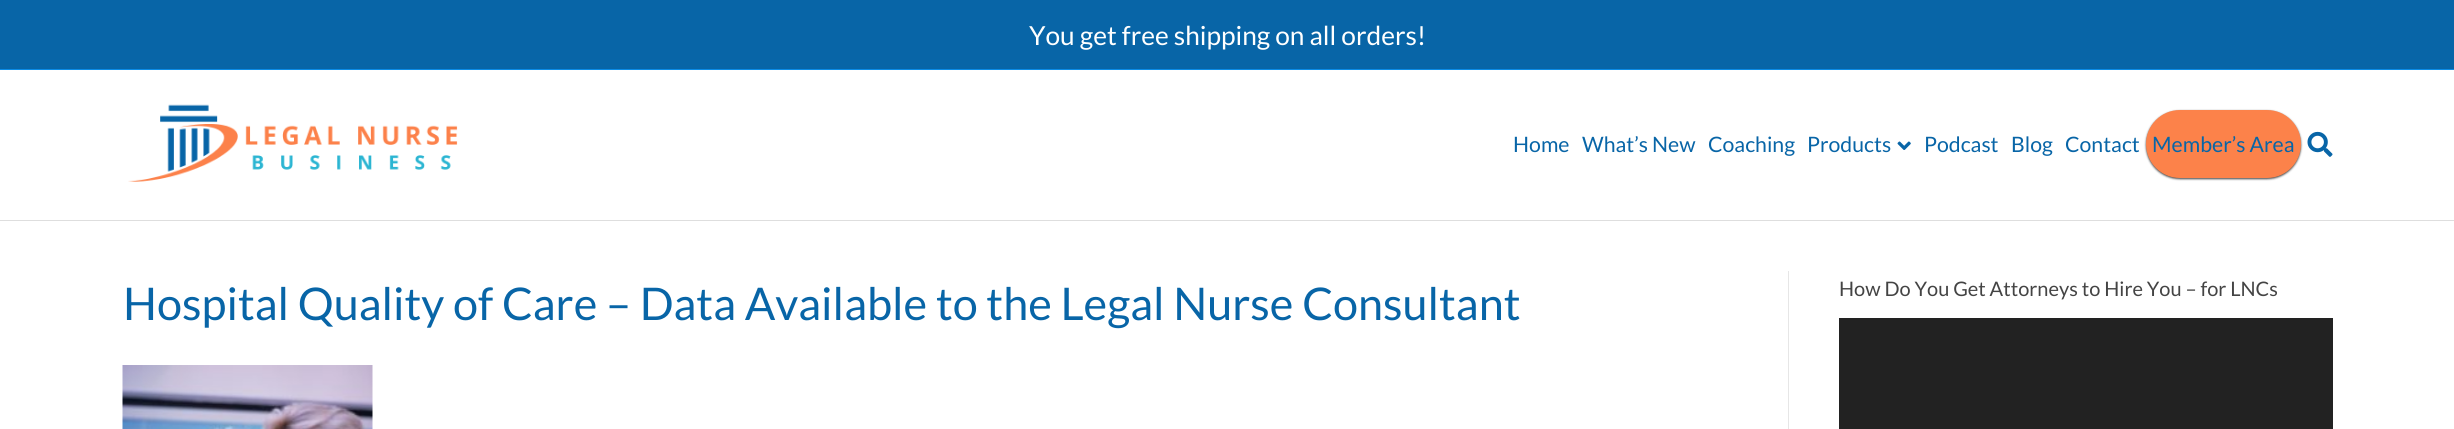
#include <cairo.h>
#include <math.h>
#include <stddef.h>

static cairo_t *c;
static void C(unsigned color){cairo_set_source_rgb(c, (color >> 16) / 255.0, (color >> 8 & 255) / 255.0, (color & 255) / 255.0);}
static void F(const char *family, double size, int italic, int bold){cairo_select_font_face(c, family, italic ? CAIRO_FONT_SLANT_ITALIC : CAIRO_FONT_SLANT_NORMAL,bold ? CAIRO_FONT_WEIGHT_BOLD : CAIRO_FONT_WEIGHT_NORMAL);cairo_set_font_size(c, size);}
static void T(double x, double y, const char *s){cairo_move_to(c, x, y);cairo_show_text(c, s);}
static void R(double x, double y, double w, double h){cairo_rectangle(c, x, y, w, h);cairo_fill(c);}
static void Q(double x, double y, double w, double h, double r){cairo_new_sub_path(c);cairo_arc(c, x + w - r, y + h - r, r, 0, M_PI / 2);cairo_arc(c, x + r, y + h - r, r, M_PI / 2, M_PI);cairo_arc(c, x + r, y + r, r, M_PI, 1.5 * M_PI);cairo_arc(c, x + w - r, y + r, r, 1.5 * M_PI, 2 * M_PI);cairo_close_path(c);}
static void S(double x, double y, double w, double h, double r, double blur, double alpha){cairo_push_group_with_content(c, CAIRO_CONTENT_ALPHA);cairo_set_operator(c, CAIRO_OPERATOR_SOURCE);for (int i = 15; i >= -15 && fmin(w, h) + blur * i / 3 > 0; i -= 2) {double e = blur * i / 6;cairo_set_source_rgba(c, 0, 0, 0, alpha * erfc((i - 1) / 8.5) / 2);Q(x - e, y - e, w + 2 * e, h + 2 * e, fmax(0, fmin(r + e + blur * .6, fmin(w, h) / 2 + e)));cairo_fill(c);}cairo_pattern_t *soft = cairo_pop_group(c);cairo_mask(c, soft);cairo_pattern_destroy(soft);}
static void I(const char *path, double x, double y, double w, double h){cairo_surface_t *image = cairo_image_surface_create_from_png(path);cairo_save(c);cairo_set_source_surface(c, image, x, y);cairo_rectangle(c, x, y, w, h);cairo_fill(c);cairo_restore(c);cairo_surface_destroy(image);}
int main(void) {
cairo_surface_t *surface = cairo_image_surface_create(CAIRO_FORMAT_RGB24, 2454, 429);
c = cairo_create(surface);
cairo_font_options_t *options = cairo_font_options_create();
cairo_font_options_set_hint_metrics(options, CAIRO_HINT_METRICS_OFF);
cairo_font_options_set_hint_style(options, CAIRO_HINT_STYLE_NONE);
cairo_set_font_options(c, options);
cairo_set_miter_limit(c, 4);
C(0xffffff);
cairo_paint(c);
C(0x0865a7);
R(0,0,2454,69);
C(0x0b8be6);
R(0,69,2454,1);
F("Lato",26.25,0,0);
C(0xffffff);
T(1029,45,"You get free shipping on all orders!");
C(0xdedede);
R(0,220,2454,1);
I("1.png",128,104,330,78);
F("Lato",21.25,0,0);
C(0x0865a7);
T(1513,152,"Home");
T(1582,152,"What’s New");
T(1708,152,"Coaching");
T(1807,152,"Products");
I("2.png",1897,141,14,9);
T(1924,152,"Podcast");
T(2011,152,"Blog");
T(2065,152,"Contact");
C(0x444444);
S(2146,111,155,68,34,1,1);
C(0xfc824a);
Q(2146,110,155,68,34);
cairo_fill(c);
C(0x0865a7);
T(2152,152,"Member’s Area");
I("3.png",2307,131,26,26);
C(0xe6e6e6);
R(1788,271,1,158);
F("Lato",45,0,0);
C(0x0865a7);
T(123,320,"Hospital Quality of Care – Data Available to the Legal Nurse Consultant");
I("4.png",122,365,251,64);
F("Lato",20,0,0);
C(0x444444);
T(1839,296,"How Do You Get Attorneys to Hire You – for LNCs");
C(0x222222);
R(1839,318,494,111);
cairo_surface_write_to_png(surface, "o.png");
cairo_font_options_destroy(options);
cairo_destroy(c);
cairo_surface_destroy(surface);
return 0;
}
